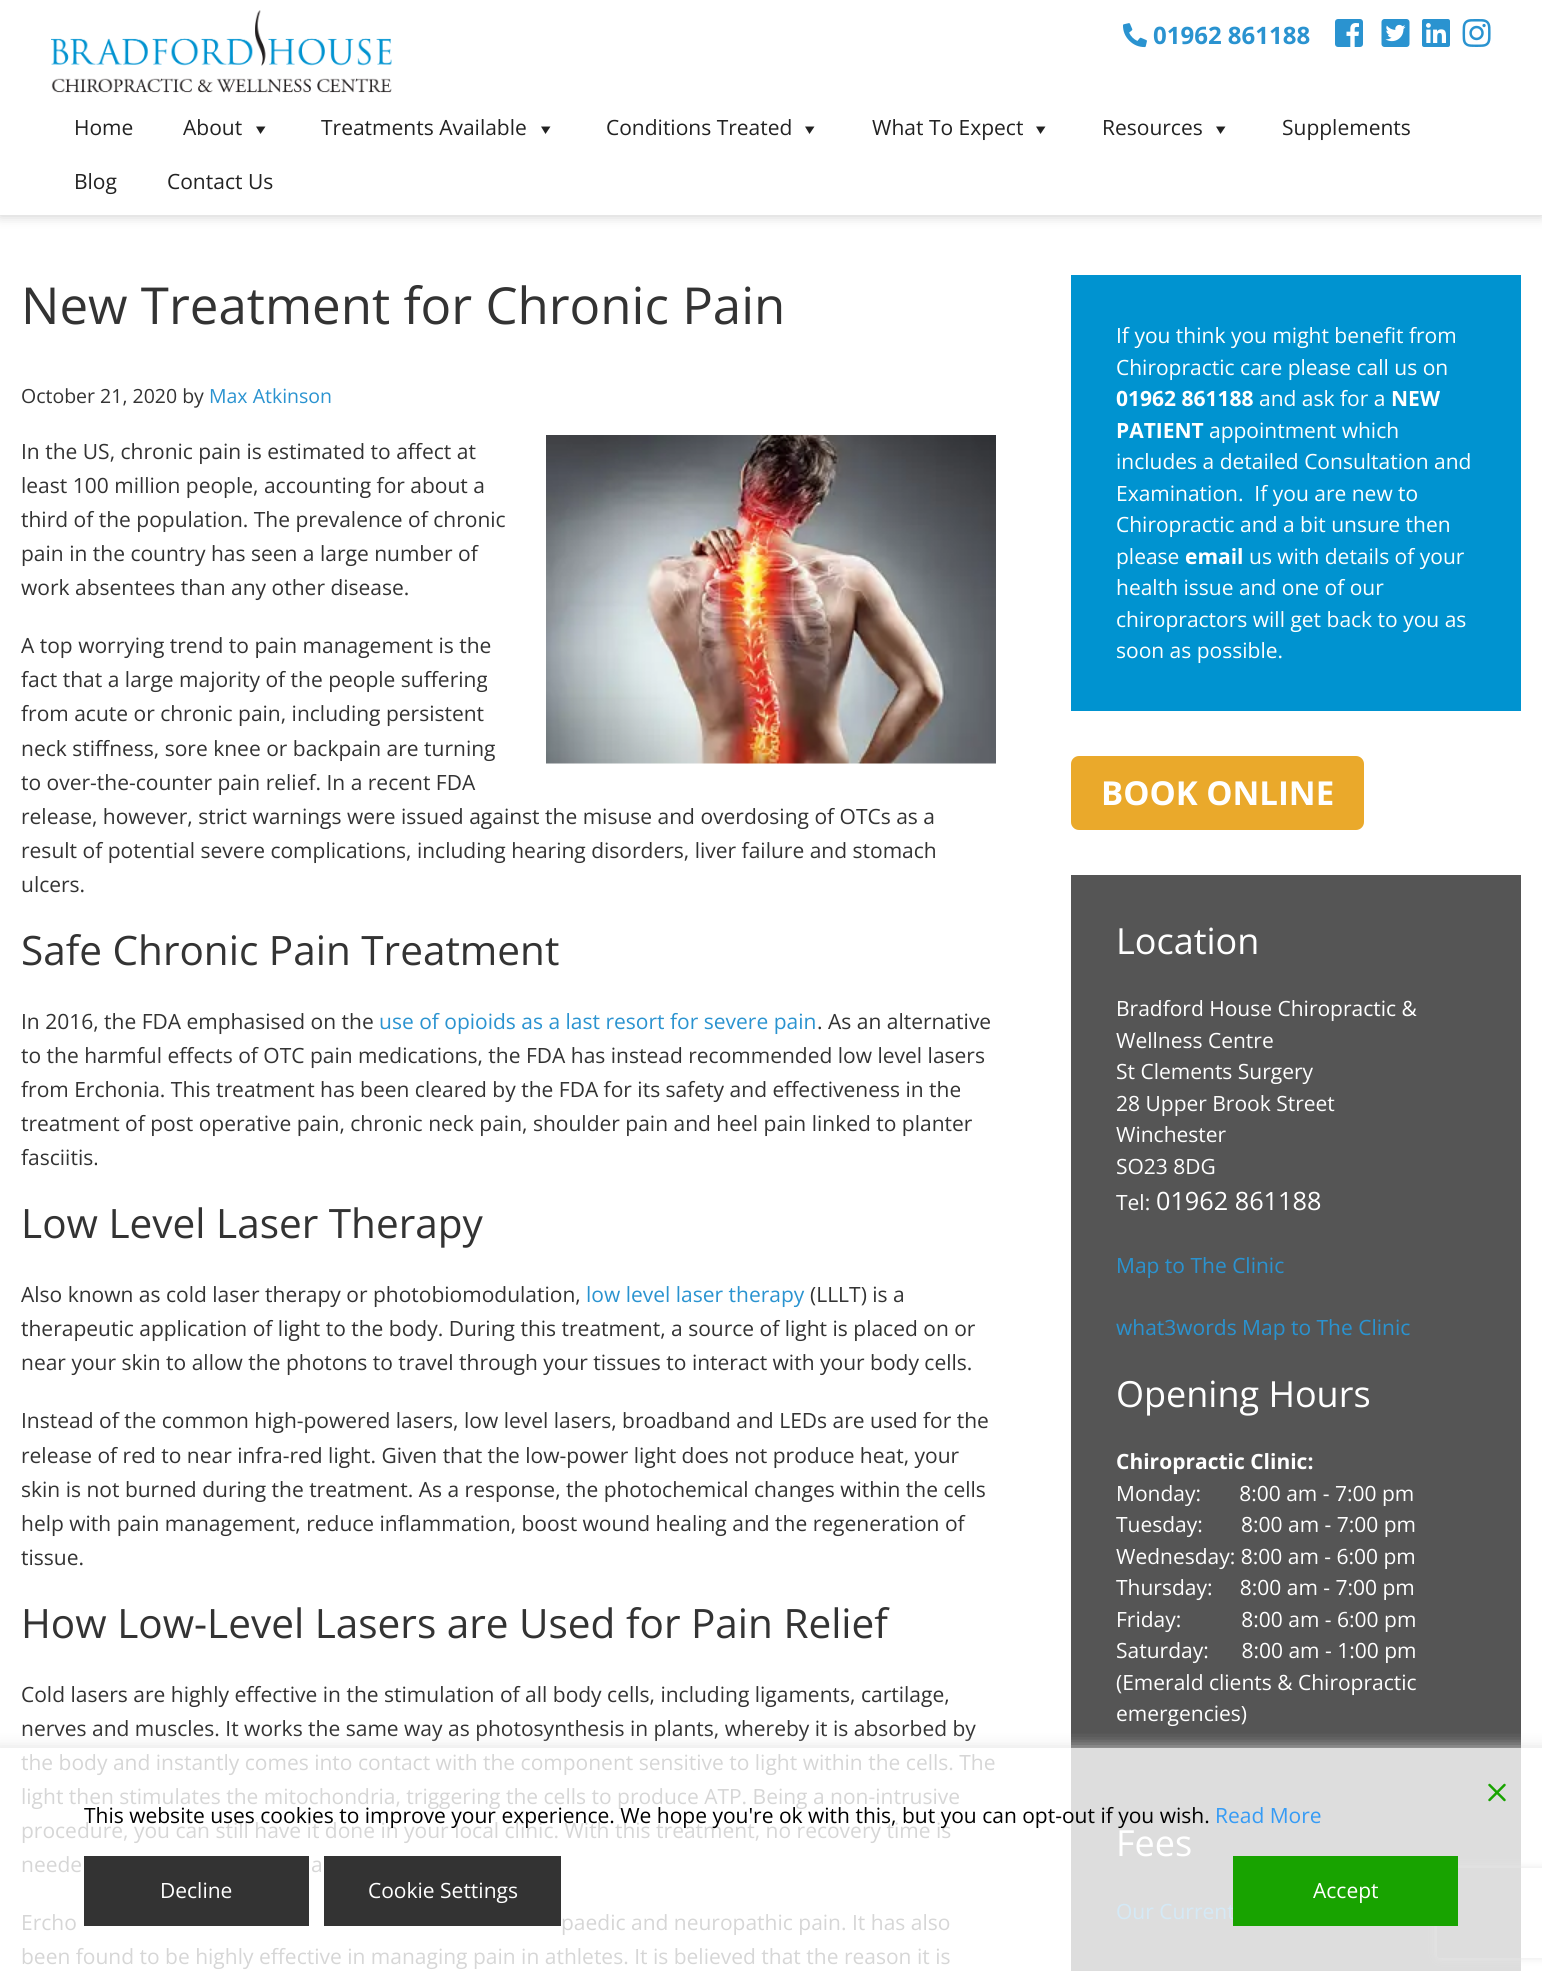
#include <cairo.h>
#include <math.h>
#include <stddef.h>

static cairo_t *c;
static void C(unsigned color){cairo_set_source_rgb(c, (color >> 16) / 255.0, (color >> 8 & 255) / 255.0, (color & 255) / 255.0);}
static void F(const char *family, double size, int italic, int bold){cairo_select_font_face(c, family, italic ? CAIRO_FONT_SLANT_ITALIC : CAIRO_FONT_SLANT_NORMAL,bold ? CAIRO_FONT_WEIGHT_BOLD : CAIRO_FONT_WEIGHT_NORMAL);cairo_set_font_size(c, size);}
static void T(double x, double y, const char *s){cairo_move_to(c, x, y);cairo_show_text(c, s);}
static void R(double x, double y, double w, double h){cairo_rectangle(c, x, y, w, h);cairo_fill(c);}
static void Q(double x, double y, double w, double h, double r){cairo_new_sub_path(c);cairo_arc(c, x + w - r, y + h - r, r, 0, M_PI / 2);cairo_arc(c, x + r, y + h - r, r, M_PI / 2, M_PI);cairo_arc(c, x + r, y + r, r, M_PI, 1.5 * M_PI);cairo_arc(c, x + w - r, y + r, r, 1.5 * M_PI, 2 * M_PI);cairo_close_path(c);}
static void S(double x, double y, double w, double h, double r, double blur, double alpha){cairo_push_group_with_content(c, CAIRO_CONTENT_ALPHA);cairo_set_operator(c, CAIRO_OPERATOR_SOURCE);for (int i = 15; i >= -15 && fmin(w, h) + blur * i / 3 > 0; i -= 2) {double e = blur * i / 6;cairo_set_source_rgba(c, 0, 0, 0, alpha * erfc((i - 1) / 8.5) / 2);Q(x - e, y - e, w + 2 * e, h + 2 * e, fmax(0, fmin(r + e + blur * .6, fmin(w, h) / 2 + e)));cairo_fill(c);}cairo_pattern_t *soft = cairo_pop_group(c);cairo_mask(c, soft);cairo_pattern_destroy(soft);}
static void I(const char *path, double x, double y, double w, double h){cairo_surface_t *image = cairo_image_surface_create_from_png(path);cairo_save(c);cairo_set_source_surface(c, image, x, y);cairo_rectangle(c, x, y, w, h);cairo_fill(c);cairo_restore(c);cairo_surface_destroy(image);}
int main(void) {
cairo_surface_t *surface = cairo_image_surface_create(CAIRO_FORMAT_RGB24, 1542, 1978);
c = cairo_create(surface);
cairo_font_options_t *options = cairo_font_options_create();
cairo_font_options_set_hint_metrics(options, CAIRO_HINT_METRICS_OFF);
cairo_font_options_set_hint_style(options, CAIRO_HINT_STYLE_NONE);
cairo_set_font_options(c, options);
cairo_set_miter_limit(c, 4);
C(0xffffff);
cairo_paint(c);
C(0x000000);
S(0,2,1542,214,0,6,.2);
C(0xffffff);
R(0,0,1542,215);
I("1.png",51,10,341,83);
I("2.png",1123,23,24,25);
F("Open Sans",24,0,1);
C(0x2a93d0);
T(1153,44,"01962 861188");
I("3.png",1335,19,28,28);
I("4.png",1381,19,29,28);
I("5.png",1422,19,28,28);
I("6.png",1462,19,29,28);
F("Open Sans",21,0,0);
C(0x222222);
T(74,135,"Home");
T(183,135,"About");
cairo_new_path(c);
cairo_move_to(c,265.5,126.5);
cairo_line_to(c,260.5,134);
cairo_line_to(c,256,126.5);
cairo_close_path(c);
cairo_fill(c);
T(321,135,"Treatments Available");
cairo_new_path(c);
cairo_move_to(c,550.5,126.5);
cairo_line_to(c,545.5,134);
cairo_line_to(c,541,126.5);
cairo_close_path(c);
cairo_fill(c);
T(606,135,"Conditions Treated");
cairo_new_path(c);
cairo_move_to(c,814.5,126.5);
cairo_line_to(c,809.5,134);
cairo_line_to(c,805,126.5);
cairo_close_path(c);
cairo_fill(c);
T(872,135,"What To Expect");
cairo_new_path(c);
cairo_move_to(c,1045.5,126.5);
cairo_line_to(c,1040.5,134);
cairo_line_to(c,1036,126.5);
cairo_close_path(c);
cairo_fill(c);
T(1102,135,"Resources");
cairo_new_path(c);
cairo_move_to(c,1225.5,126.5);
cairo_line_to(c,1220.5,134);
cairo_line_to(c,1216,126.5);
cairo_close_path(c);
cairo_fill(c);
T(1282,135,"Supplements");
T(74,189,"Blog");
T(167,189,"Contact Us");
F("Open Sans",51,0,0);
C(0x333333);
T(21,324,"New Treatment for Chronic Pain");
F("Open Sans",19.5,0,0);
T(21,403,"October 21, 2020 by");
C(0x2a93d0);
T(209,403,"Max Atkinson");
F("Open Sans",21,0,0);
C(0x333333);
T(21,459,"In the US, chronic pain is estimated to affect at");
I("7.png",546,435,450,329);
T(21,493,"least 100 million people, accounting for about a");
T(21,527,"third of the population. The prevalence of chronic");
T(21,561,"pain in the country has seen a large number of");
T(21,595,"work absentees than any other disease.");
T(21,653,"A top worrying trend to pain management is the");
T(21,687,"fact that a large majority of the people suffering");
T(21,721,"from acute or chronic pain, including persistent");
T(21,756,"neck stiffness, sore knee or backpain are turning");
T(21,790,"to over-the-counter pain relief. In a recent FDA");
T(21,824,"release, however, strict warnings were issued against the misuse and overdosing of OTCs as a");
T(21,858,"result of potential severe complications, including hearing disorders, liver failure and stomach");
T(21,892,"ulcers.");
F("Open Sans",40.5,0,0);
T(21,965,"Safe Chronic Pain Treatment");
F("Open Sans",21,0,0);
T(21,1029,"In 2016, the FDA emphasised on the");
C(0x2a93d0);
T(379,1029,"use of opioids as a last resort for severe pain");
C(0x333333);
T(817,1029,". As an alternative");
T(21,1063,"to the harmful effects of OTC pain medications, the FDA has instead recommended low level lasers");
T(21,1097,"from Erchonia. This treatment has been cleared by the FDA for its safety and effectiveness in the");
T(21,1131,"treatment of post operative pain, chronic neck pain, shoulder pain and heel pain linked to planter");
T(21,1165,"fasciitis.");
F("Open Sans",40.5,0,0);
T(21,1238,"Low Level Laser Therapy");
F("Open Sans",21,0,0);
T(21,1302,"Also known as cold laser therapy or photobiomodulation,");
C(0x2a93d0);
T(586,1302,"low level laser therapy");
C(0x333333);
T(810,1302,"(LLLT) is a");
T(21,1336,"therapeutic application of light to the body. During this treatment, a source of light is placed on or");
T(21,1370,"near your skin to allow the photons to travel through your tissues to interact with your body cells.");
T(21,1428,"Instead of the common high-powered lasers, low level lasers, broadband and LEDs are used for the");
T(21,1463,"release of red to near infra-red light. Given that the low-power light does not produce heat, your");
T(21,1497,"skin is not burned during the treatment. As a response, the photochemical changes within the cells");
T(21,1531,"help with pain management, reduce inflammation, boost wound healing and the regeneration of");
T(21,1565,"tissue.");
F("Open Sans",40.5,0,0);
T(21,1638,"How Low-Level Lasers are Used for Pain Relief");
F("Open Sans",21,0,0);
T(21,1702,"Cold lasers are highly effective in the stimulation of all body cells, including ligaments, cartilage,");
T(21,1736,"nerves and muscles. It works the same way as photosynthesis in plants, whereby it is absorbed by");
C(0xd6d6d6);
T(21,1770,"the body and instantly comes into contact with the component sensitive to light within the cells. The");
T(21,1804,"light then stimulates the mitochondria, triggering the cells to produce ATP. Being a non-intrusive");
T(21,1838,"procedure, you can still have it done in your local clinic. With this treatment, no recovery time is");
T(21,1872,"neede");
T(311,1872,"a");
T(21,1930,"Ercho");
T(561,1930,"paedic and neuropathic pain. It has also");
T(21,1964,"been found to be highly effective in managing pain in athletes. It is believed that the reason it is");
C(0x0093d0);
R(1071,275,450,436);
C(0xffffff);
T(1116,343,"If you think you might benefit from");
T(1116,375,"Chiropractic care please call us on");
F("Open Sans",21,0,1);
T(1116,406,"01962 861188");
F("Open Sans",21,0,0);
T(1259,406,"and ask for a");
F("Open Sans",21,0,1);
T(1391,406,"NEW");
T(1116,438,"PATIENT");
F("Open Sans",21,0,0);
T(1209,438,"appointment which");
T(1116,469,"includes a detailed Consultation and");
T(1116,501,"Examination.  If you are new to");
T(1116,532,"Chiropractic and a bit unsure then");
T(1116,564,"please");
F("Open Sans",21,0,1);
T(1185,564,"email");
F("Open Sans",21,0,0);
T(1249,564,"us with details of your");
T(1116,595,"health issue and one of our");
T(1116,627,"chiropractors will get back to you as");
T(1116,658,"soon as possible.");
C(0xeaa92b);
Q(1071,756,293,74,8);
cairo_fill(c);
F("Open Sans",33,0,1);
C(0xffffff);
T(1101,805,"BOOK ONLINE");
C(0x555555);
R(1071,875,450,873);
C(0xdddddd);
R(1071,1748,450,223);
F("Open Sans",36,0,0);
C(0xffffff);
T(1116,954,"Location");
F("Open Sans",21,0,0);
T(1116,1016,"Bradford House Chiropractic &");
T(1116,1048,"Wellness Centre");
T(1116,1079,"St Clements Surgery");
T(1116,1111,"28 Upper Brook Street");
T(1116,1142,"Winchester");
T(1116,1174,"SO23 8DG");
T(1116,1210,"Tel:");
F("Open Sans",25.25,0,0);
T(1156,1210,"01962 861188");
F("Open Sans",21,0,0);
C(0x2a93d0);
T(1116,1273,"Map to The Clinic");
T(1116,1335,"what3words Map to The Clinic");
F("Open Sans",36,0,0);
C(0xffffff);
T(1116,1407,"Opening Hours");
F("Open Sans",21,0,1);
T(1116,1469,"Chiropractic Clinic:");
F("Open Sans",21,0,0);
T(1116,1501,"Monday:       8:00 am - 7:00 pm");
T(1116,1532,"Tuesday:       8:00 am - 7:00 pm");
T(1116,1564,"Wednesday: 8:00 am - 6:00 pm");
T(1116,1595,"Thursday:     8:00 am - 7:00 pm");
T(1116,1627,"Friday:           8:00 am - 6:00 pm");
T(1116,1658,"Saturday:      8:00 am - 1:00 pm");
T(1116,1690,"(Emerald clients & Chiropractic");
T(1116,1721,"emergencies)");
F("Open Sans",36,0,0);
T(1116,1856,"Fees");
F("Open Sans",21,0,0);
C(0xd4e9f6);
T(1116,1919,"Our Current");
cairo_save(c);
cairo_rectangle(c,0,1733,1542,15);
cairo_clip(c);
C(0xdddddd);
S(-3,1749,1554,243,0,8,1);
cairo_restore(c);
I("8.png",1488,1783,18,19);
C(0x000000);
T(84,1823,"This website uses cookies to improve your experience. We hope you're ok with this, but you can opt-out if you wish.");
C(0x359bf5);
T(1215,1823,"Read More");
C(0x333333);
R(84,1856,225,70);
C(0xffffff);
T(160,1898,"Decline");
C(0x333333);
R(324,1856,237,70);
C(0xffffff);
T(368,1898,"Cookie Settings");
cairo_save(c);
cairo_set_fill_rule(c,CAIRO_FILL_RULE_EVEN_ODD);
cairo_new_path(c);
cairo_move_to(c,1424,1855);
cairo_line_to(c,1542,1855);
cairo_line_to(c,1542,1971);
cairo_line_to(c,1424,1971);
cairo_close_path(c);
cairo_move_to(c,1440,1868);
cairo_line_to(c,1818,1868);
cairo_curve_to(c,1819.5,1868,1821,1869.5,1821,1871);
cairo_line_to(c,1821,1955);
cairo_curve_to(c,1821,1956.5,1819.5,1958,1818,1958);
cairo_line_to(c,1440,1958);
cairo_curve_to(c,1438.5,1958,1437,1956.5,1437,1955);
cairo_line_to(c,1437,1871);
cairo_curve_to(c,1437,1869.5,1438.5,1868,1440,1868);
cairo_close_path(c);
cairo_clip(c);
C(0xe6e6e6);
S(1437,1868,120,90,3,4,1);
cairo_restore(c);
C(0x18a300);
R(1233,1856,225,70);
C(0xffffff);
T(1313,1898,"Accept");
cairo_surface_write_to_png(surface, "o.png");
cairo_font_options_destroy(options);
cairo_destroy(c);
cairo_surface_destroy(surface);
return 0;
}
